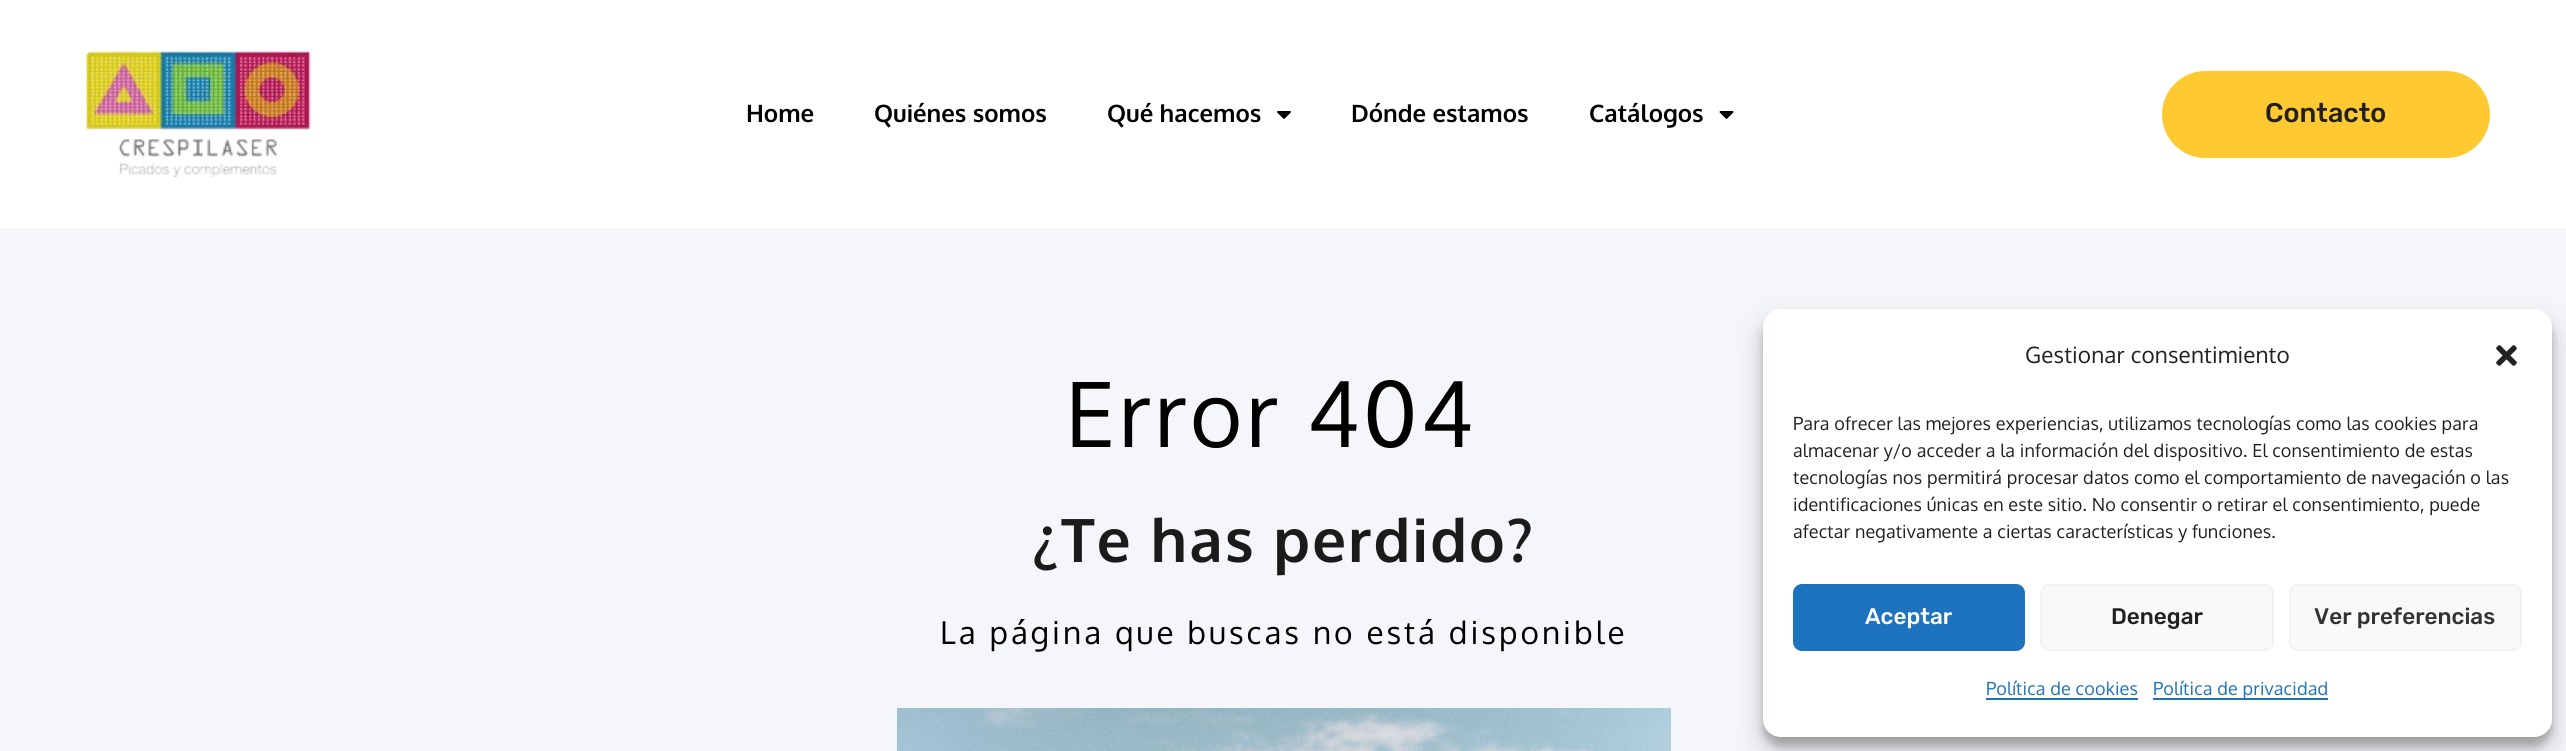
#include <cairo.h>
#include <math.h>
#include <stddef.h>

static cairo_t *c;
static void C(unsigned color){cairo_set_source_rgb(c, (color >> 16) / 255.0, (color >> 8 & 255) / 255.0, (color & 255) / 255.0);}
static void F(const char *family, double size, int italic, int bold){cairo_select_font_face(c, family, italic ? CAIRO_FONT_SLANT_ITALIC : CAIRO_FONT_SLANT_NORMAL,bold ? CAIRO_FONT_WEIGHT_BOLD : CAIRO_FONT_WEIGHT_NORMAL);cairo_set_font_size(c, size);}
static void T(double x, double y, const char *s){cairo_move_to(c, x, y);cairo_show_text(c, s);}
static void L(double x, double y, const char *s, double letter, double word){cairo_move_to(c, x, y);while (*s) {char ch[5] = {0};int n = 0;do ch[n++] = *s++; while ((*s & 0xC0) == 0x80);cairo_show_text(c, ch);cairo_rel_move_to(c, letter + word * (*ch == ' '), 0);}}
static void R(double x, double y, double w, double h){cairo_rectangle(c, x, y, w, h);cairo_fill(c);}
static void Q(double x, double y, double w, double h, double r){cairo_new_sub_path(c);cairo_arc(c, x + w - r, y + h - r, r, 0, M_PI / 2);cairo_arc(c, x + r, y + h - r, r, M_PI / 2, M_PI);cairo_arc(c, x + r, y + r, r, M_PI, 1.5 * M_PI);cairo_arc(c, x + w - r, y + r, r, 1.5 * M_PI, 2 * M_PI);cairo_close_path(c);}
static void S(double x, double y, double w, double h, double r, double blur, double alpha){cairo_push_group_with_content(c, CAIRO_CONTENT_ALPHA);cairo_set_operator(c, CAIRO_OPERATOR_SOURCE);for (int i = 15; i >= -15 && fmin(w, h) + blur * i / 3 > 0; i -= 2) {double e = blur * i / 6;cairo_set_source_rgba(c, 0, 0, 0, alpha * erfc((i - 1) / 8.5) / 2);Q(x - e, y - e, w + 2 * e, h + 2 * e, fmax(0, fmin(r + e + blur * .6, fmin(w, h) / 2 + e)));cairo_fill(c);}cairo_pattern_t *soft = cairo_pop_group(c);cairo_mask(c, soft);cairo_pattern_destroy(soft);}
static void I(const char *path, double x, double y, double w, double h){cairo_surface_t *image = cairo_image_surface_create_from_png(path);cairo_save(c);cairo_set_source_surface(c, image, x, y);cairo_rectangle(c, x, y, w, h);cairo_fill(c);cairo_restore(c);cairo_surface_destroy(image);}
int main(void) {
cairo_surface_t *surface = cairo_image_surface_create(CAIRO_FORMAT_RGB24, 2566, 751);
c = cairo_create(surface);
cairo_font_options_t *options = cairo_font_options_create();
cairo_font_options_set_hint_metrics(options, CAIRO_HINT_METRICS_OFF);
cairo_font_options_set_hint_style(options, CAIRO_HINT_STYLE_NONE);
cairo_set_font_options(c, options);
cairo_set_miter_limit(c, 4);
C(0xffffff);
cairo_paint(c);
I("1.png",85,51,226,126);
F("Oxygen",24,0,1);
C(0x000000);
T(746,122,"Home");
T(874,122,"Quiénes somos");
T(1107,122,"Qué hacemos");
I("2.png",1277,111,14,8);
T(1351,122,"Dónde estamos");
T(1589,122,"Catálogos");
I("3.png",1719,111,15,8);
C(0xfec931);
Q(2162,71,328,87,43.5);
cairo_fill(c);
F("Rubik Medium",27,0,0);
C(0x212121);
T(2265,122,"Contacto");
C(0xf5f6fa);
R(0,228,2566,523);
F("Oxygen",90,0,0);
C(0x000000);
L(1065,447,"Error 404",3,0);
F("Oxygen",60,0,1);
C(0x1b1b1b);
L(1033,562,"¿Te has perdido?",2,0);
F("Oxygen",31.5,0,0);
C(0x000000);
L(940,644,"La página que buscas no está disponible",3,0);
I("4.png",897,708,774,43);
C(0x000000);
S(1763,318,789,428,18,4.5,.23);
S(1763,324,789,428,18,15,.19);
C(0xffffff);
Q(1763,309,789,428,18);
cairo_fill(c);
F("Oxygen",22.5,0,0);
C(0x212121);
L(2025,363,"Gestionar consentimiento",.15,0);
I("5.png",2496,345,21,21);
F("Oxygen",18,0,0);
L(1793,430,"Para ofrecer las mejores experiencias, utilizamos tecnologías como las cookies para",.15,0);
L(1793,457,"almacenar y/o acceder a la información del dispositivo. El consentimiento de estas",.15,0);
L(1793,484,"tecnologías nos permitirá procesar datos como el comportamiento de navegación o las",.15,0);
L(1793,511,"identificaciones únicas en este sitio. No consentir o retirar el consentimiento, puede",.15,0);
L(1793,538,"afectar negativamente a ciertas características y funciones.",.15,0);
C(0x1e73be);
Q(1794,585,230,65,8);
cairo_fill_preserve(c);
cairo_stroke(c);
F("Rubik Medium",22.5,0,0);
C(0xffffff);
T(1865,624,"Aceptar");
C(0xf9f9f9);
Q(2041,585,232,65,8);
cairo_fill_preserve(c);
C(0xf2f2f2);
cairo_stroke(c);
C(0x212121);
T(2111,624,"Denegar");
C(0xf9f9f9);
Q(2290,585,231,65,8);
cairo_fill_preserve(c);
C(0xf2f2f2);
cairo_stroke(c);
C(0x333333);
T(2314,624,"Ver preferencias");
F("Oxygen",18,0,0);
C(0x1e73be);
L(1986,695,"Política de cookies",.15,0);
R(1986,698,152,2);
R(2153,698,175,2);
L(2153,695,"Política de privacidad",.15,0);
cairo_surface_write_to_png(surface, "o.png");
cairo_font_options_destroy(options);
cairo_destroy(c);
cairo_surface_destroy(surface);
return 0;
}
